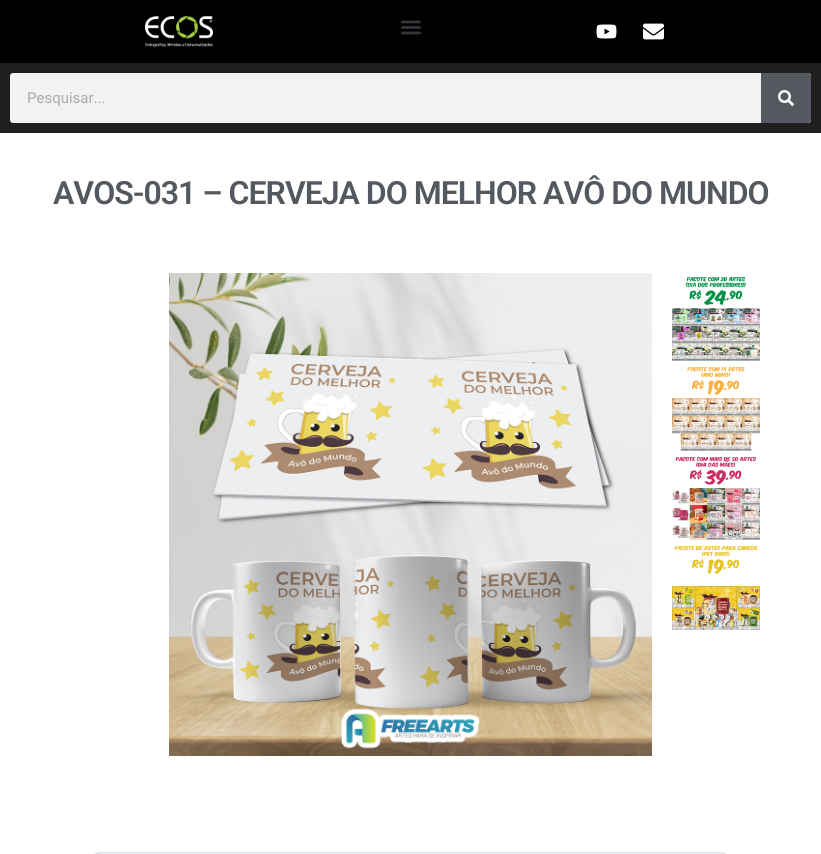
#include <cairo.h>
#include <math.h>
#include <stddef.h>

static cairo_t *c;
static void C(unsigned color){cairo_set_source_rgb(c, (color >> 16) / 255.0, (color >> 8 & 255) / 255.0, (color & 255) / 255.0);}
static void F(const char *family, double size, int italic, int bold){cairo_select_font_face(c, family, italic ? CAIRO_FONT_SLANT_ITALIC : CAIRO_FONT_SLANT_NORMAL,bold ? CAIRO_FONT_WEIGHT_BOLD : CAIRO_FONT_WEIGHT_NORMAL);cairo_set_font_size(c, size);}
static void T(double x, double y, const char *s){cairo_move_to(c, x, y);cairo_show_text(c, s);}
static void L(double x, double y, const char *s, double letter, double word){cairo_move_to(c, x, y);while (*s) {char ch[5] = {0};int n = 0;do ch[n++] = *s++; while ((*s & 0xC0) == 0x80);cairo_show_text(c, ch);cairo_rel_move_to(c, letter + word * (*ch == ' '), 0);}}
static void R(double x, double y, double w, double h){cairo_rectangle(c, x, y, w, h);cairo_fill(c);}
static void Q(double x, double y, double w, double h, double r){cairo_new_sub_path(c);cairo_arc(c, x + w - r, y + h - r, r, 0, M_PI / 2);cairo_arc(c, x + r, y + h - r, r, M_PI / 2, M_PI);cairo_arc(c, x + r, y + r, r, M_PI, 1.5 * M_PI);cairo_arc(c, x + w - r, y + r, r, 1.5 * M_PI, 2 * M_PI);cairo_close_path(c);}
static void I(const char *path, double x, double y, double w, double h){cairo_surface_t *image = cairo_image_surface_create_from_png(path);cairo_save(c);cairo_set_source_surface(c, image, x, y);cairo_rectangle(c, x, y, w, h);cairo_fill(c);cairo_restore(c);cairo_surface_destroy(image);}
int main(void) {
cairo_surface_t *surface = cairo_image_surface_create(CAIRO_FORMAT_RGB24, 821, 854);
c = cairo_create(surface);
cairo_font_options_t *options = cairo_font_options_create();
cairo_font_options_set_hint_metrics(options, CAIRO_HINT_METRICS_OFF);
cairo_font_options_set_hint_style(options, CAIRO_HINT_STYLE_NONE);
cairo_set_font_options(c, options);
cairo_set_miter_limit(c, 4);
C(0xffffff);
cairo_paint(c);
C(0x000000);
R(0,0,821,63);
I("1.png",145,16,68,31);
I("2.png",401,20,20,15);
I("3.png",596,24,21,15);
I("4.png",643,23,21,17);
C(0x1f1f1f);
R(0,63,821,70);
C(0xf1f2f3);
Q(10,73,801,50,3);
cairo_fill(c);
F("Roboto",15,0,0);
C(0xaaaaaa);
T(27,103,"Pesquisar...");
C(0x54595f);
cairo_new_path(c);
cairo_move_to(c,761,73);
cairo_line_to(c,808,73);
cairo_curve_to(c,809.5,73,811,74.5,811,76);
cairo_line_to(c,811,120);
cairo_curve_to(c,811,121.5,809.5,123,808,123);
cairo_line_to(c,761,123);
cairo_close_path(c);
cairo_fill(c);
I("5.png",778,90,16,16);
F("Roboto SemiBold",32,0,0);
L(53,204,"AVOS-031 – CERVEJA DO MELHOR AVÔ DO MUNDO",-1,0);
I("6.png",169,273,483,483);
I("7.png",672,276,88,85);
I("8.png",672,366,88,85);
I("9.png",672,456,88,84);
I("10.png",672,545,88,85);
C(0xf0f8ff);
Q(89.5,852.5,642,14,11.5);
cairo_fill_preserve(c);
C(0xdddddd);
cairo_set_line_width(c,1);
cairo_stroke(c);
cairo_surface_write_to_png(surface, "o.png");
cairo_font_options_destroy(options);
cairo_destroy(c);
cairo_surface_destroy(surface);
return 0;
}
